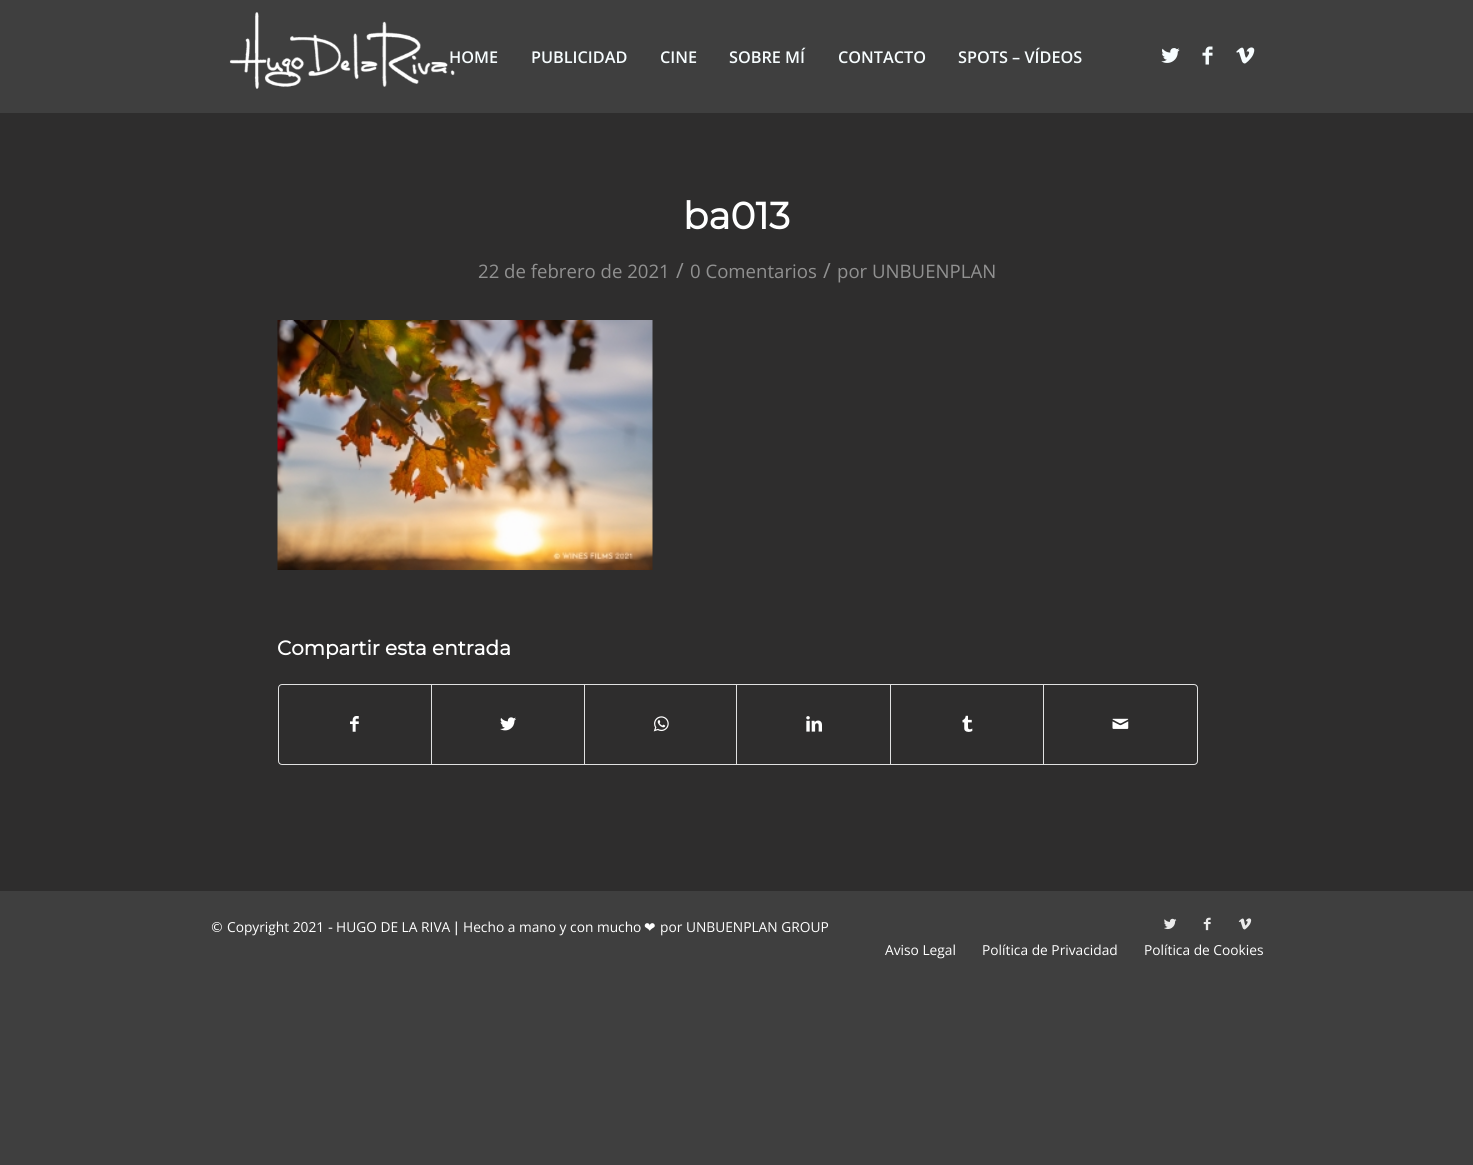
#include <cairo.h>
#include <math.h>
#include <stddef.h>

static cairo_t *c;
static void C(unsigned color){cairo_set_source_rgb(c, (color >> 16) / 255.0, (color >> 8 & 255) / 255.0, (color & 255) / 255.0);}
static void F(const char *family, double size, int italic, int bold){cairo_select_font_face(c, family, italic ? CAIRO_FONT_SLANT_ITALIC : CAIRO_FONT_SLANT_NORMAL,bold ? CAIRO_FONT_WEIGHT_BOLD : CAIRO_FONT_WEIGHT_NORMAL);cairo_set_font_size(c, size);}
static void T(double x, double y, const char *s){cairo_move_to(c, x, y);cairo_show_text(c, s);}
static void R(double x, double y, double w, double h){cairo_rectangle(c, x, y, w, h);cairo_fill(c);}
static void Q(double x, double y, double w, double h, double r){cairo_new_sub_path(c);cairo_arc(c, x + w - r, y + h - r, r, 0, M_PI / 2);cairo_arc(c, x + r, y + h - r, r, M_PI / 2, M_PI);cairo_arc(c, x + r, y + r, r, M_PI, 1.5 * M_PI);cairo_arc(c, x + w - r, y + r, r, 1.5 * M_PI, 2 * M_PI);cairo_close_path(c);}
static void I(const char *path, double x, double y, double w, double h){cairo_surface_t *image = cairo_image_surface_create_from_png(path);cairo_save(c);cairo_set_source_surface(c, image, x, y);cairo_rectangle(c, x, y, w, h);cairo_fill(c);cairo_restore(c);cairo_surface_destroy(image);}
int main(void) {
cairo_surface_t *surface = cairo_image_surface_create(CAIRO_FORMAT_RGB24, 1473, 1165);
c = cairo_create(surface);
cairo_font_options_t *options = cairo_font_options_create();
cairo_font_options_set_hint_metrics(options, CAIRO_HINT_METRICS_OFF);
cairo_font_options_set_hint_style(options, CAIRO_HINT_STYLE_NONE);
cairo_set_font_options(c, options);
cairo_set_miter_limit(c, 4);
C(0x3f3f3f);
cairo_paint(c);
I("1.png",229,12,226,77);
F("Open Sans SemiBold",16.25,0,0);
C(0xf7fdff);
T(449,63,"HOME");
T(531,63,"PUBLICIDAD");
T(660,63,"CINE");
T(729,63,"SOBRE MÍ");
T(838,63,"CONTACTO");
T(958,63,"SPOTS – VÍDEOS");
I("2.png",1161,48,19,15);
I("3.png",1202,46,11,19);
I("4.png",1236,47,19,17);
C(0x2e2d2d);
R(0,113,1473,778);
F("Montserrat",37.5,0,1);
C(0xffffff);
T(683,229,"ba013");
F("Open Sans",18.6,0,0);
C(0x919191);
T(478,278,"22 de febrero de 2021");
F("Open Sans",21,0,0);
T(676,278,"/");
F("Open Sans",18.6,0,0);
T(690,278,"0 Comentarios");
F("Open Sans",21,0,0);
T(823,278,"/");
F("Open Sans",18.6,0,0);
T(837,278,"por UNBUENPLAN");
I("5.png",277,320,376,250);
F("Montserrat",20,0,1);
C(0xffffff);
T(277,655,"Compartir esta entrada");
Q(278.5,684.5,919,80,3.5);
C(0xe1e1e1);
cairo_set_line_width(c,1);
cairo_stroke(c);
I("6.png",350,716,9,16);
R(431,685,1,79);
I("7.png",500,717,16,14);
R(584,685,1,79);
I("8.png",653,716,16,16);
R(736,685,1,79);
I("9.png",806,716,16,16);
R(890,685,1,79);
I("10.png",962,715,11,17);
R(1043,685,1,79);
I("11.png",1112,718,17,11);
F("DejaVu Sans",13.75,0,0);
C(0xffffff);
T(210,932,"©");
F("Open Sans",13.75,0,0);
T(227,932,"Copyright 2021");
F("DejaVu Sans",13.75,0,0);
T(328,932,"-");
F("Open Sans",13.75,0,0);
T(336,932,"HUGO DE LA RIVA");
F("DejaVu Sans",13.75,0,0);
T(454,932,"|");
F("Open Sans",13.75,0,0);
T(463,932,"Hecho a mano y con mucho");
F("DejaVu Sans",13.75,0,0);
T(644,932,"❤");
F("Open Sans",13.75,0,0);
T(660,932,"por UNBUENPLAN GROUP");
I("12.png",1164,918,13,12);
I("13.png",1203,917,8,14);
I("14.png",1238,918,14,12);
T(885,955,"Aviso Legal");
T(982,955,"Política de Privacidad");
T(1144,955,"Política de Cookies");
cairo_surface_write_to_png(surface, "o.png");
cairo_font_options_destroy(options);
cairo_destroy(c);
cairo_surface_destroy(surface);
return 0;
}
